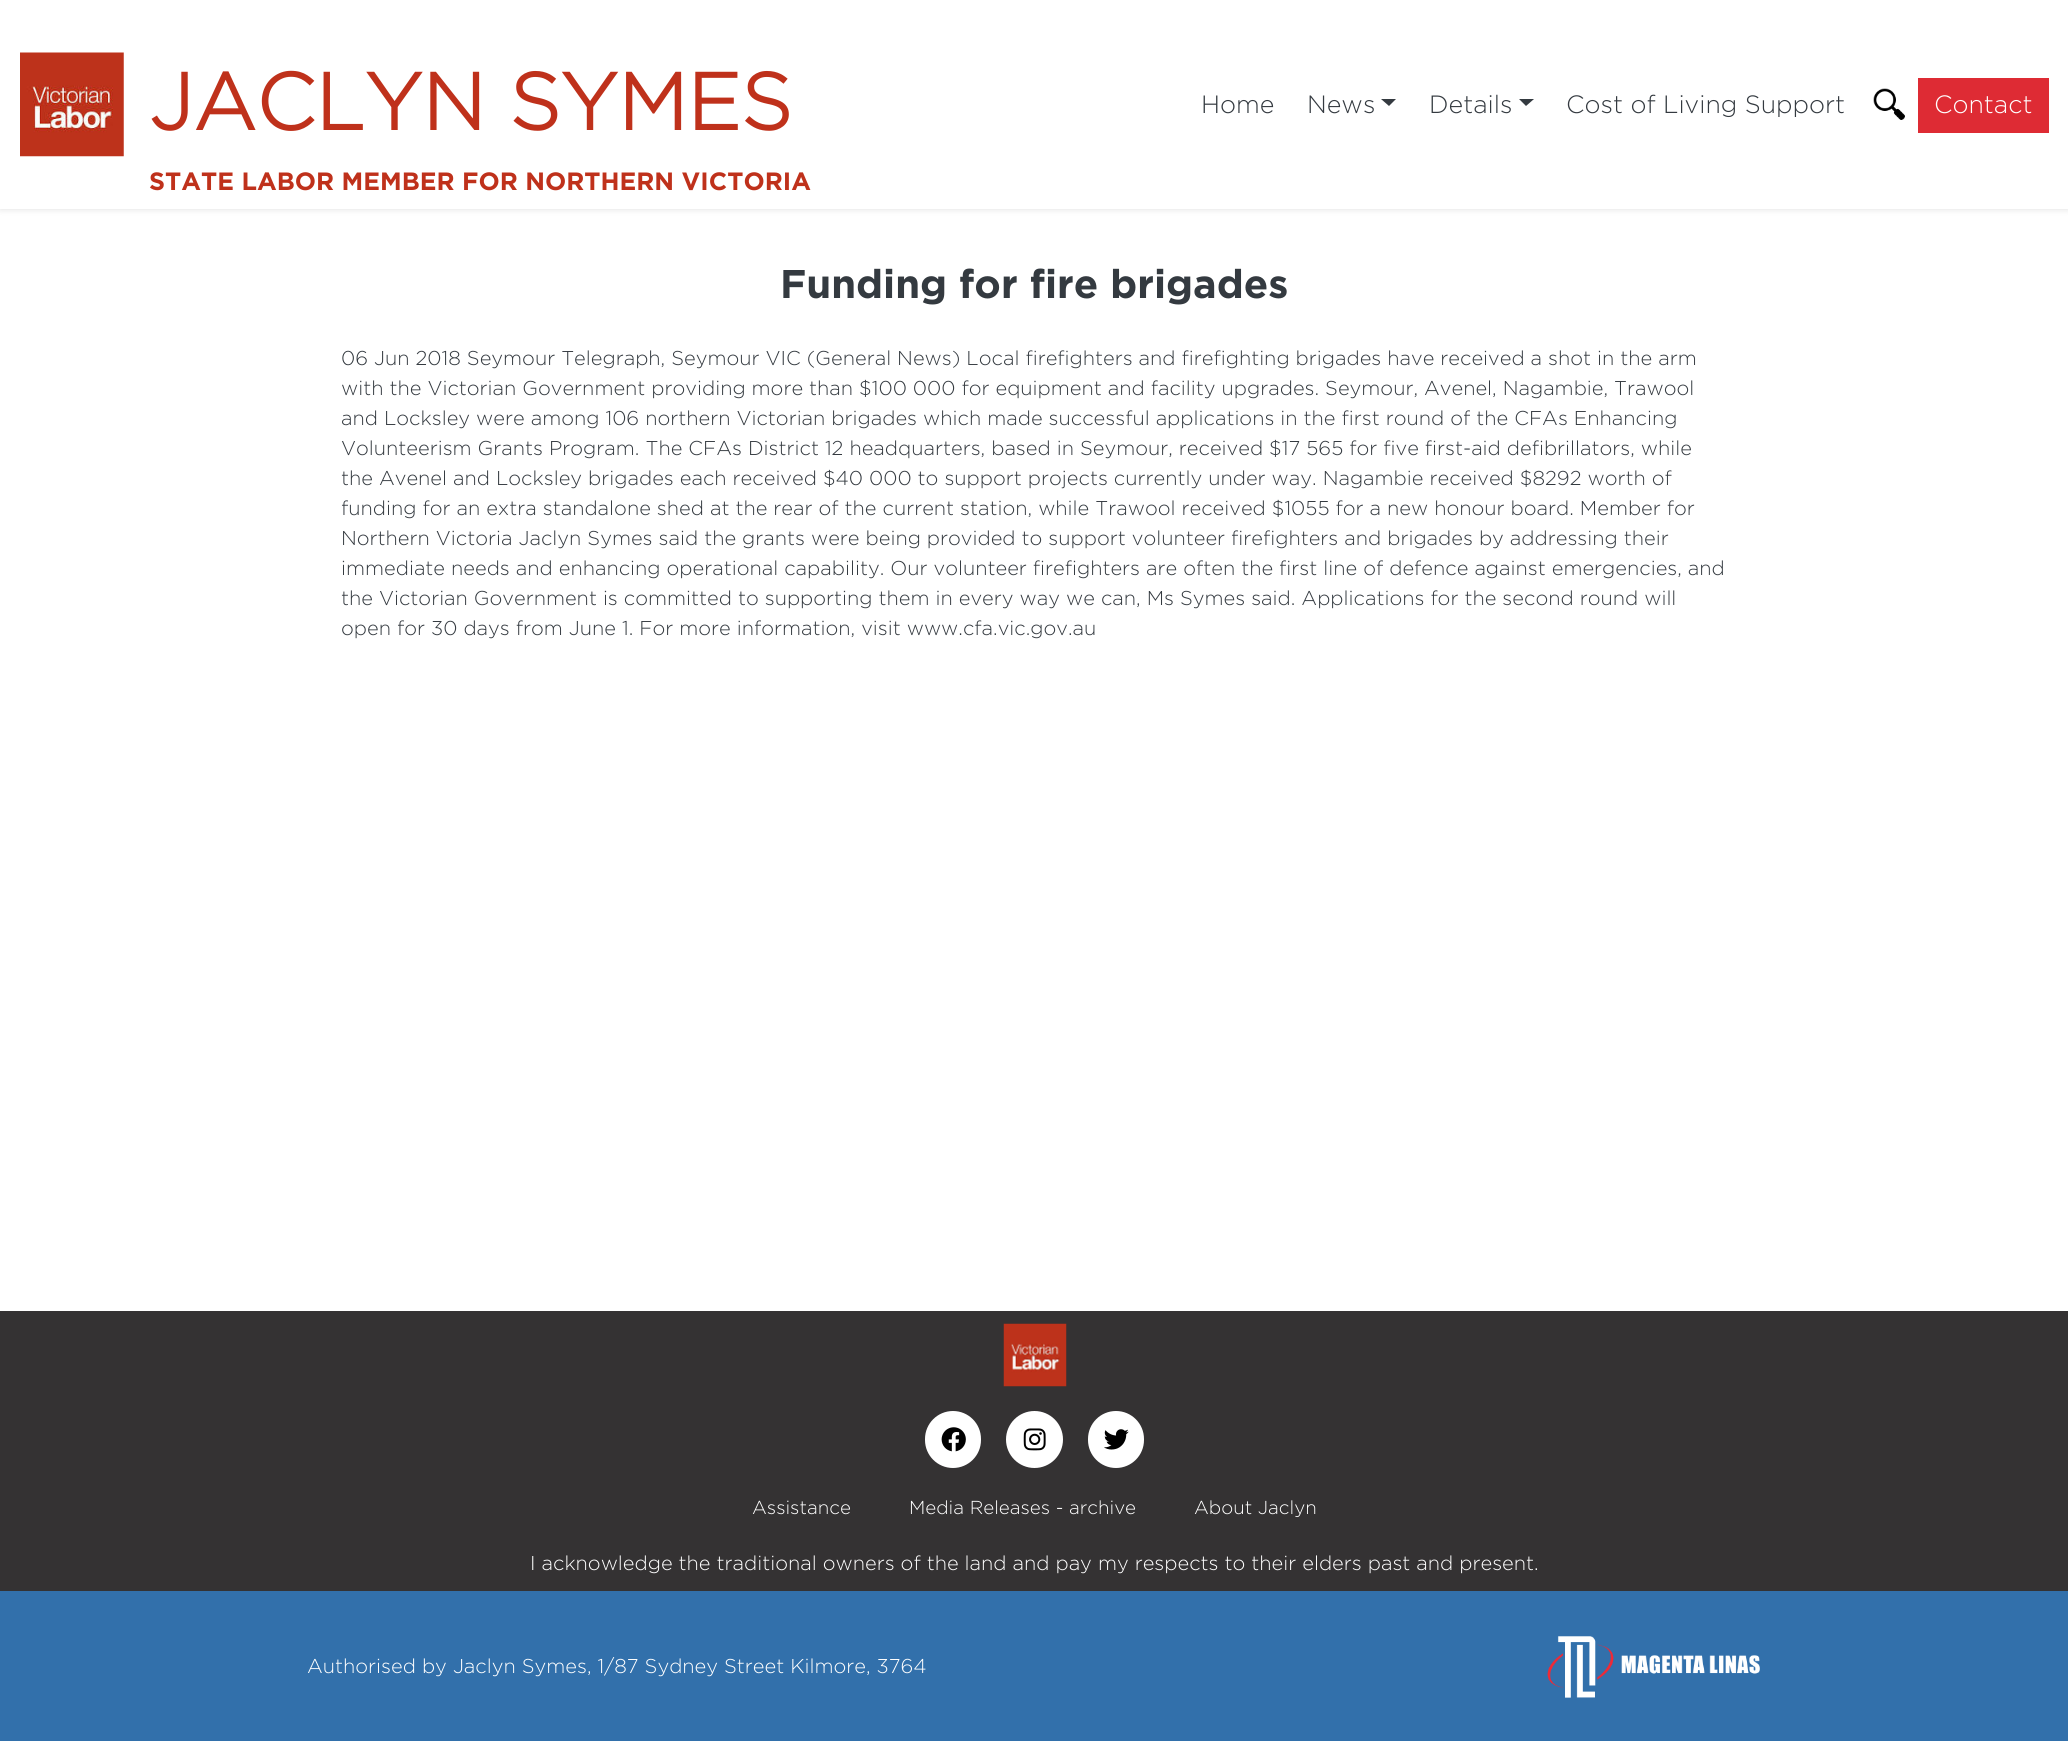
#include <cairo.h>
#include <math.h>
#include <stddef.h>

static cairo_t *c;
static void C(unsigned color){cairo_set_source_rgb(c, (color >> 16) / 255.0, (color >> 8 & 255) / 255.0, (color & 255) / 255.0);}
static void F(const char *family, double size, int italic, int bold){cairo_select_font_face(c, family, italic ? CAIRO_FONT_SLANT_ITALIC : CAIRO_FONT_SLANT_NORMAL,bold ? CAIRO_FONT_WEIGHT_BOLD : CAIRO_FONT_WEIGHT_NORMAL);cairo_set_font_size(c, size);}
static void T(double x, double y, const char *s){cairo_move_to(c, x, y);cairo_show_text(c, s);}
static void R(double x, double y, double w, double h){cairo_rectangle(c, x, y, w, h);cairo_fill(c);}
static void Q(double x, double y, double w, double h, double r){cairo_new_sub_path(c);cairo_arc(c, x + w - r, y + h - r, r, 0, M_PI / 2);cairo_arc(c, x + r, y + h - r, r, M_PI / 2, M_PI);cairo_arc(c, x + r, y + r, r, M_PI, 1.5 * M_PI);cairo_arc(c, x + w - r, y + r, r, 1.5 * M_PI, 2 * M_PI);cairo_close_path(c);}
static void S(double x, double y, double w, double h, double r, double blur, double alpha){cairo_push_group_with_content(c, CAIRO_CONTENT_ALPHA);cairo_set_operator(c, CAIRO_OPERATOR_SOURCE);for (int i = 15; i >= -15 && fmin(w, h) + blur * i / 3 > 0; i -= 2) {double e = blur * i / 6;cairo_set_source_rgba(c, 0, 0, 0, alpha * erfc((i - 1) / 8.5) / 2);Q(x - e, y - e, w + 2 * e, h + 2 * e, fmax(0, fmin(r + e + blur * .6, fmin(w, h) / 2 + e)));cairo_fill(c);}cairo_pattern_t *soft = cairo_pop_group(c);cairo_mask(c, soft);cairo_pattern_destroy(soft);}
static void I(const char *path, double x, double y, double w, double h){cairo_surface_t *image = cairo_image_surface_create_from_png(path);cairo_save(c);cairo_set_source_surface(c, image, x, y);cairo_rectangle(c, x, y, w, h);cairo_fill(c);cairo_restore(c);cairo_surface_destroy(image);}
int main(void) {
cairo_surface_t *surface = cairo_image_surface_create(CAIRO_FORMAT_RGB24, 2068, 1741);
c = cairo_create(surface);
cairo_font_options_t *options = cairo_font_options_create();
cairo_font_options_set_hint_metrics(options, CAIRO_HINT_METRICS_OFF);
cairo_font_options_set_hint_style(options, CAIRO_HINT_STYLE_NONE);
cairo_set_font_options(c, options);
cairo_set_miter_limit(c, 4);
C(0xffffff);
cairo_paint(c);
C(0x000000);
S(0,1,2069,209,0,3,.1);
C(0xffffff);
R(0,0,2068,209);
I("1.png",20,52,104,105);
F("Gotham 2",80,0,1);
C(0xbf311b);
T(149,130,"JACLYN SYMES");
F("Gotham",25,0,1);
T(149,190,"STATE LABOR MEMBER FOR NORTHERN VICTORIA");
F("Gotham Light",25,0,0);
C(0x343a40);
T(1201,113,"Home");
T(1307,113,"News");
cairo_new_path(c);
cairo_move_to(c,1381,99);
cairo_line_to(c,1396,99);
cairo_line_to(c,1389,106);
cairo_close_path(c);
cairo_fill(c);
T(1429,113,"Details");
cairo_new_path(c);
cairo_move_to(c,1519,99);
cairo_line_to(c,1534,99);
cairo_line_to(c,1526,106);
cairo_close_path(c);
cairo_fill(c);
T(1566,113,"Cost of Living Support");
I("2.png",1873,88,32,32);
C(0xde2b34);
R(1918,78,131,55);
C(0xffffff);
T(1934,113,"Contact");
F("Gotham",40,0,1);
C(0x343a40);
T(780,298,"Funding for fire brigades");
F("Gotham Light",20,0,0);
T(341,365,"06 Jun 2018 Seymour Telegraph, Seymour VIC (General News) Local firefighters and firefighting brigades have received a shot in the arm");
T(341,395,"with the Victorian Government providing more than $100 000 for equipment and facility upgrades. Seymour, Avenel, Nagambie, Trawool");
T(341,425,"and Locksley were among 106 northern Victorian brigades which made successful applications in the first round of the CFAs Enhancing");
T(341,455,"Volunteerism Grants Program. The CFAs District 12 headquarters, based in Seymour, received $17 565 for five first-aid defibrillators, while");
T(341,485,"the Avenel and Locksley brigades each received $40 000 to support projects currently under way. Nagambie received $8292 worth of");
T(341,515,"funding for an extra standalone shed at the rear of the current station, while Trawool received $1055 for a new honour board. Member for");
T(341,545,"Northern Victoria Jaclyn Symes said the grants were being provided to support volunteer firefighters and brigades by addressing their");
T(341,575,"immediate needs and enhancing operational capability. Our volunteer firefighters are often the first line of defence against emergencies, and");
T(341,605,"the Victorian Government is committed to supporting them in every way we can, Ms Symes said. Applications for the second round will");
T(341,635,"open for 30 days from June 1. For more information, visit www.cfa.vic.gov.au");
C(0x343233);
R(0,1311,2068,280);
I("3.png",1003,1323,64,64);
C(0xffffff);
Q(925,1411,56,57,28);
cairo_fill(c);
I("4.png",941,1427,25,25);
cairo_arc(c,1034.5,1439.5,28.5,0,2 * M_PI);
cairo_fill(c);
I("5.png",1023,1428,23,23);
Q(1088,1411,56,57,28);
cairo_fill(c);
I("6.png",1104,1429,25,21);
F("Gotham Light",18.75,0,0);
T(752,1514,"Assistance");
T(909,1514,"Media Releases - archive");
T(1194,1514,"About Jaclyn");
F("Gotham Light",20,0,0);
T(530,1570,"I acknowledge the traditional owners of the land and pay my respects to their elders past and present.");
C(0x3270ab);
R(0,1591,2068,150);
C(0xffffff);
T(307,1673,"Authorised by Jaclyn Symes, 1/87 Sydney Street Kilmore, 3764");
I("7.png",1547,1636,213,62);
cairo_surface_write_to_png(surface, "o.png");
cairo_font_options_destroy(options);
cairo_destroy(c);
cairo_surface_destroy(surface);
return 0;
}
